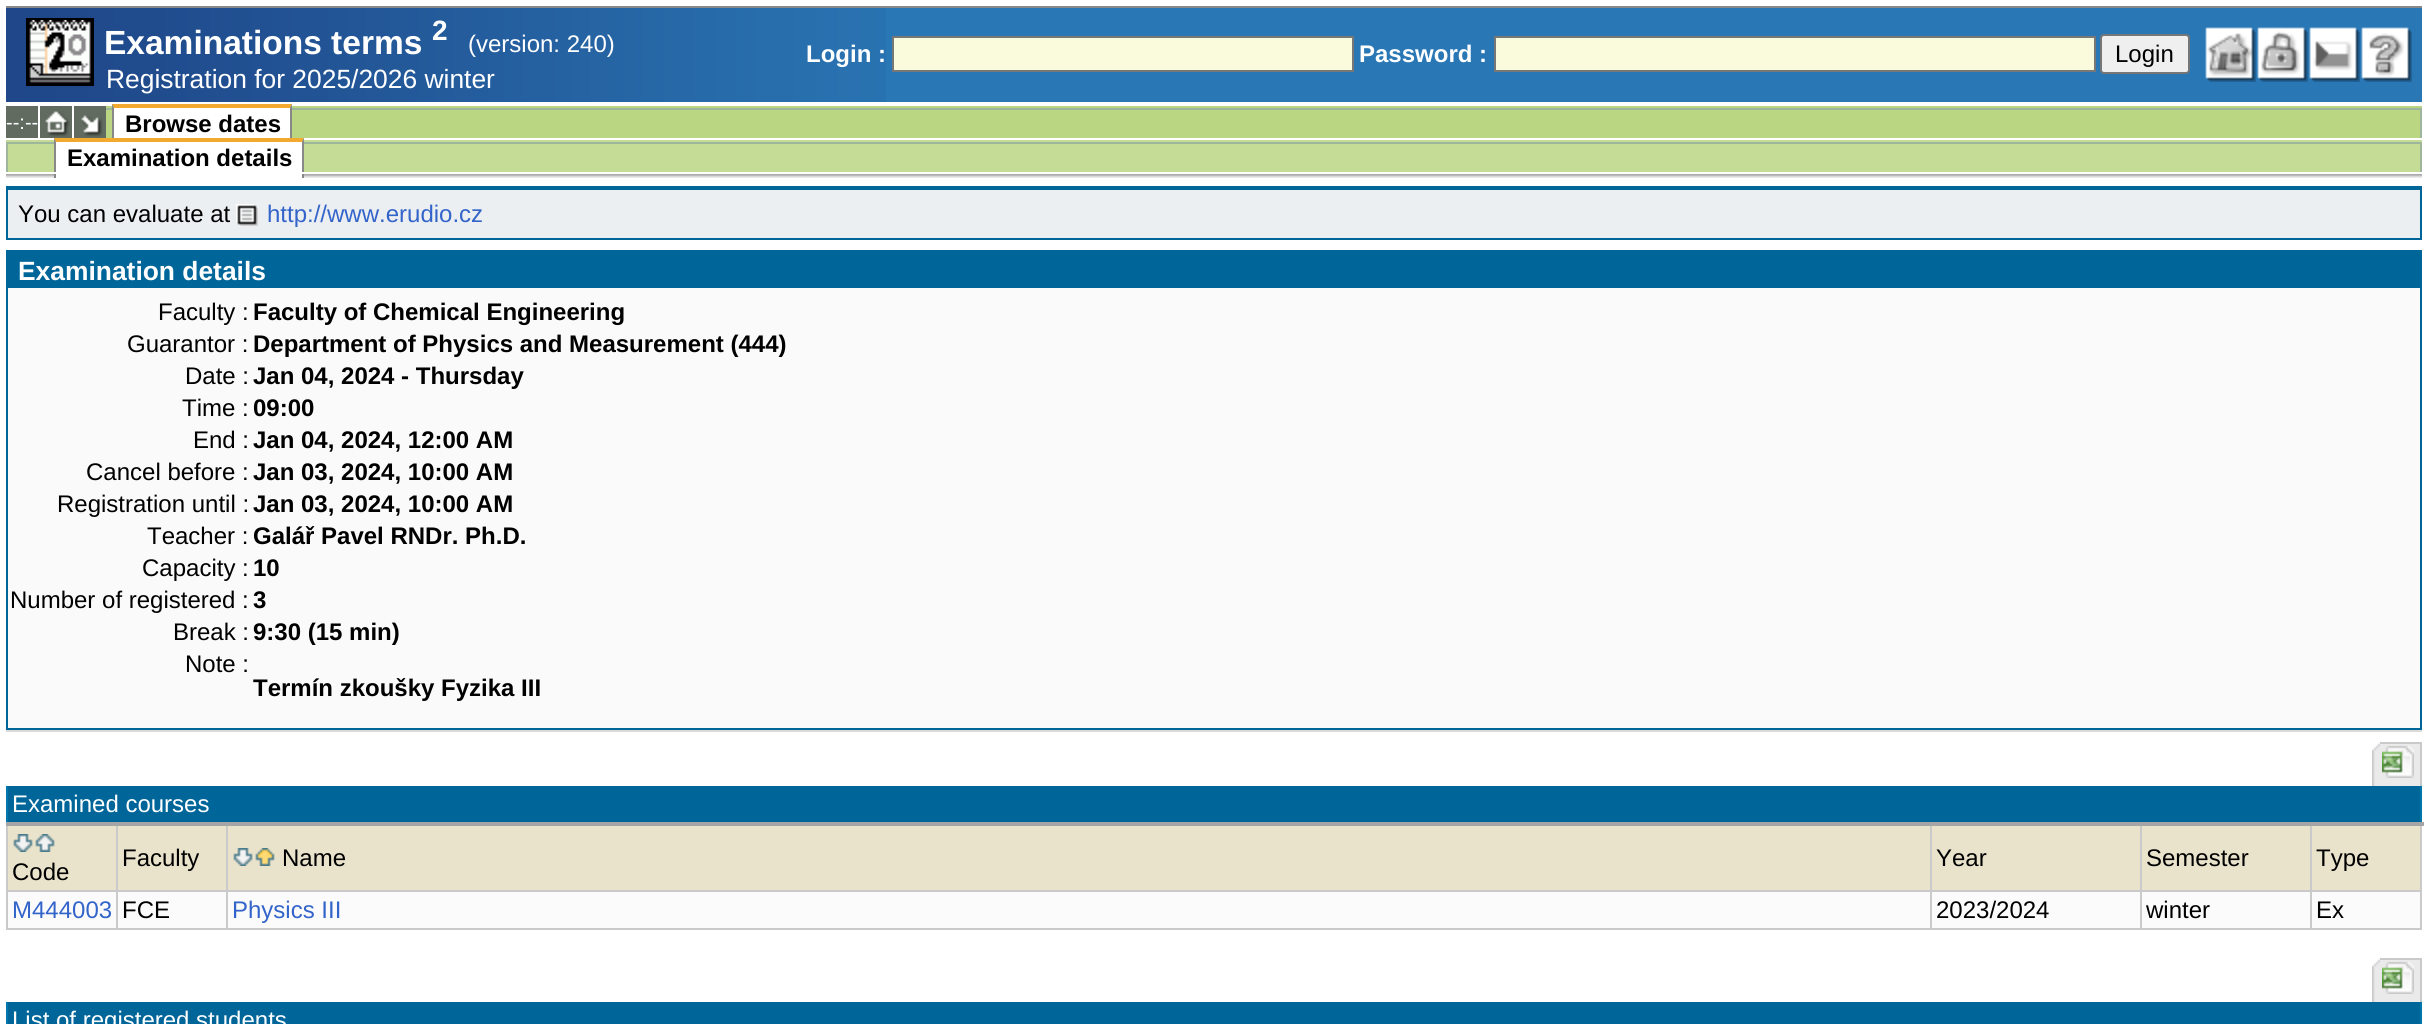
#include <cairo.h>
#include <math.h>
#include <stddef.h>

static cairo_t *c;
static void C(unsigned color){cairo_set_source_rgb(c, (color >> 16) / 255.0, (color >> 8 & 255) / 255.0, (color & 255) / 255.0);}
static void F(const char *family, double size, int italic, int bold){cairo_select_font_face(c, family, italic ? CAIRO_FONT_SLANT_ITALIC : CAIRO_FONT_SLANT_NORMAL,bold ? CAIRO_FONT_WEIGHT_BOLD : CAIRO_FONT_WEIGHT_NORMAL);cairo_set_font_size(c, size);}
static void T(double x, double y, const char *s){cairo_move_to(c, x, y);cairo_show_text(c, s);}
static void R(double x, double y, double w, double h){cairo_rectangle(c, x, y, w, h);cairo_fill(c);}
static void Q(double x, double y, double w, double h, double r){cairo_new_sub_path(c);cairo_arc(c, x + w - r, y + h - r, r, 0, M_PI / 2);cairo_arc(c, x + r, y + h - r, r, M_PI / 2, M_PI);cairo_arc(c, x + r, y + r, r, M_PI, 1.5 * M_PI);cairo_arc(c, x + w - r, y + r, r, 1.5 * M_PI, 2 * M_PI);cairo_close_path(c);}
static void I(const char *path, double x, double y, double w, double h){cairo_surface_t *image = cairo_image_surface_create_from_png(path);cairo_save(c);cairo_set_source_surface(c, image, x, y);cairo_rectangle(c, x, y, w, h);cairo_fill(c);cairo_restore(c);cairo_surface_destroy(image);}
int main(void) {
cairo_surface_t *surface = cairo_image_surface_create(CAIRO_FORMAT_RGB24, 2427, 1024);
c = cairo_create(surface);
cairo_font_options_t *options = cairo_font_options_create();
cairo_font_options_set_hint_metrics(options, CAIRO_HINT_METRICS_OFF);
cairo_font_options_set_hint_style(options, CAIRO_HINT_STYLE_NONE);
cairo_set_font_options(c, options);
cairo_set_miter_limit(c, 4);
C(0xffffff);
cairo_paint(c);
C(0x2a77b5);
R(886,8,1536,94);
I("1.png",6,8,880,94);
C(0x888888);
R(6,6,2416,2);
cairo_rectangle(c,27,19,66,66);
C(0x000000);
cairo_stroke(c);
I("2.png",28,20,64,64);
F("Liberation Sans",33.5,0,1);
C(0xffffff);
T(104,54,"Examinations terms");
F("Liberation Sans",28,0,1);
T(432,40,"2");
F("Liberation Sans",24,0,0);
T(468,52,"(version: 240)");
F("Liberation Sans",26.4,0,0);
T(106,88,"Registration for 2025/2026 winter");
F("Liberation Sans",24,0,1);
T(806,62,"Login :");
C(0xfafadc);
cairo_rectangle(c,893,37,460,34);
cairo_fill_preserve(c);
C(0x777777);
cairo_stroke(c);
C(0xffffff);
T(1359,62,"Password :");
C(0xfafadc);
cairo_rectangle(c,1495,37,600,34);
cairo_fill_preserve(c);
C(0x777777);
cairo_stroke(c);
C(0xefefef);
Q(2101,35,88,38,3);
cairo_fill_preserve(c);
C(0x767676);
cairo_stroke(c);
F("Liberation Sans",24,0,0);
C(0x000000);
T(2115,62,"Login");
I("3.png",2205,27,51,55);
I("4.png",2257,27,51,55);
I("5.png",2309,27,51,55);
I("6.png",2361,27,51,55);
C(0xbad683);
R(106,104,2316,34);
C(0x616b60);
R(6,106,32,32);
F("Liberation Sans",20,0,0);
C(0xffffff);
T(6,129,"--:--");
C(0x616b60);
R(40,106,32,32);
I("7.png",45,111,25,26);
R(74,106,32,32);
I("8.png",81,115,22,22);
C(0xffffff);
R(106,104,6,2);
C(0x9eb69b);
R(106,108,6,2);
C(0xf2a92f);
cairo_new_path(c);
cairo_move_to(c,112,104);
cairo_line_to(c,292,104);
cairo_line_to(c,290,108);
cairo_line_to(c,114,108);
cairo_close_path(c);
cairo_fill(c);
C(0x888888);
cairo_new_path(c);
cairo_move_to(c,292,104);
cairo_line_to(c,292,138);
cairo_line_to(c,290,138);
cairo_line_to(c,290,108);
cairo_close_path(c);
cairo_fill(c);
cairo_new_path(c);
cairo_move_to(c,112,138);
cairo_line_to(c,112,104);
cairo_line_to(c,114,108);
cairo_line_to(c,114,138);
cairo_close_path(c);
cairo_fill(c);
C(0xffffff);
R(114,108,176,30);
F("Liberation Sans",24,0,1);
C(0x000000);
T(125,132,"Browse dates");
C(0xffffff);
R(292,104,2130,2);
C(0x9eb69b);
R(292,108,2130,2);
R(2420,108,2,30);
C(0xc4dc95);
R(6,138,2416,34);
C(0xffffff);
R(6,138,48,2);
C(0x9eb69b);
R(6,142,48,2);
R(6,142,2,30);
C(0xf2a92f);
cairo_new_path(c);
cairo_move_to(c,54,138);
cairo_line_to(c,304,138);
cairo_line_to(c,302,142);
cairo_line_to(c,56,142);
cairo_close_path(c);
cairo_fill(c);
C(0x888888);
cairo_new_path(c);
cairo_move_to(c,304,138);
cairo_line_to(c,304,172);
cairo_line_to(c,302,172);
cairo_line_to(c,302,142);
cairo_close_path(c);
cairo_fill(c);
cairo_new_path(c);
cairo_move_to(c,54,172);
cairo_line_to(c,54,138);
cairo_line_to(c,56,142);
cairo_line_to(c,56,172);
cairo_close_path(c);
cairo_fill(c);
C(0xffffff);
R(56,142,246,30);
C(0x000000);
T(67,166,"Examination details");
C(0xffffff);
R(304,138,2118,2);
C(0x9eb69b);
R(304,142,2118,2);
R(2420,142,2,30);
I("9.png",6,174,48,4);
C(0x888888);
R(302,174,2,4);
R(54,174,2,4);
I("10.png",304,174,2118,4);
C(0xeceff1);
R(8,190,2412,48);
C(0x006699);
R(6,186,2416,4);
R(2420,186,2,54);
R(6,238,2416,2);
R(6,186,2,54);
F("Liberation Sans",24,0,0);
C(0x000000);
T(18,222,"You can evaluate at");
I("11.png",236,204,22,22);
C(0x3364ca);
T(267,222,"http://www.erudio.cz");
C(0xfafafa);
R(8,288,2412,440);
C(0x006699);
R(6,250,2416,4);
R(2420,250,2,480);
R(6,728,2416,2);
R(6,250,2,480);
R(8,254,2412,34);
F("Liberation Sans",26.4,0,1);
C(0xffffff);
T(18,280,"Examination details");
F("Liberation Sans",24,0,0);
C(0x000000);
T(158,320,"Faculty :");
F("Liberation Sans",24,0,1);
T(253,320,"Faculty of Chemical Engineering");
F("Liberation Sans",24,0,0);
T(127,352,"Guarantor :");
F("Liberation Sans",24,0,1);
T(253,352,"Department of Physics and Measurement (444)");
F("Liberation Sans",24,0,0);
T(185,384,"Date :");
F("Liberation Sans",24,0,1);
T(253,384,"Jan 04, 2024 - Thursday");
F("Liberation Sans",24,0,0);
T(182,416,"Time :");
F("Liberation Sans",24,0,1);
T(253,416,"09:00");
F("Liberation Sans",24,0,0);
T(193,448,"End :");
F("Liberation Sans",24,0,1);
T(253,448,"Jan 04, 2024, 12:00 AM");
F("Liberation Sans",24,0,0);
T(86,480,"Cancel before :");
F("Liberation Sans",24,0,1);
T(253,480,"Jan 03, 2024, 10:00 AM");
F("Liberation Sans",24,0,0);
T(57,512,"Registration until :");
F("Liberation Sans",24,0,1);
T(253,512,"Jan 03, 2024, 10:00 AM");
F("Liberation Sans",24,0,0);
T(147,544,"Teacher :");
F("Liberation Sans",24,0,1);
T(253,544,"Galář Pavel RNDr. Ph.D.");
F("Liberation Sans",24,0,0);
T(142,576,"Capacity :");
F("Liberation Sans",24,0,1);
T(253,576,"10");
F("Liberation Sans",24,0,0);
T(10,608,"Number of registered :");
F("Liberation Sans",24,0,1);
T(253,608,"3");
F("Liberation Sans",24,0,0);
T(173,640,"Break :");
F("Liberation Sans",24,0,1);
T(253,640,"9:30 (15 min)");
F("Liberation Sans",24,0,0);
T(185,672,"Note :");
F("Liberation Sans",24,0,1);
T(253,696,"Termín zkoušky Fyzika III");
C(0xdadada);
R(6,730,2416,2);
I("12.png",2372,743,8,43);
C(0xeaeaea);
R(2380,744,40,42);
C(0xcacaca);
R(2380,742,42,2);
R(2420,742,2,44);
I("13.png",2382,746,32,32);
C(0x006699);
R(8,786,2412,36);
C(0xcacaca);
R(6,890,2416,2);
R(2420,824,2,106);
C(0x0077aa);
R(2420,786,2,40);
C(0xcacaca);
R(6,928,2416,2);
R(6,824,2,106);
C(0x0077aa);
R(6,786,2,40);
C(0xeae3cc);
R(8,826,2412,64);
C(0xfbfbfb);
R(8,892,2412,36);
C(0xcacaca);
R(116,824,2,106);
R(226,824,2,106);
R(1930,824,2,106);
R(2140,824,2,106);
R(2310,824,2,106);
C(0xa5a5a5);
R(6,822,2418,4);
F("Liberation Sans",24,0,0);
C(0xffffff);
T(12,812,"Examined courses");
I("14.png",13,834,20,18);
I("15.png",35,834,20,18);
C(0x000000);
T(12,880,"Code");
T(122,866,"Faculty");
I("14.png",233,848,20,18);
I("16.png",255,848,20,18);
T(282,866,"Name");
T(1936,866,"Year");
T(2146,866,"Semester");
T(2316,866,"Type");
C(0x3364ca);
T(12,918,"M444003");
C(0x000000);
T(122,918,"FCE");
C(0x3364ca);
T(232,918,"Physics III");
C(0x000000);
T(1936,918,"2023/2024");
T(2146,918,"winter");
T(2316,918,"Ex");
I("12.png",2372,959,8,43);
C(0xeaeaea);
R(2380,960,40,42);
C(0xcacaca);
R(2380,958,42,2);
R(2420,958,2,44);
I("13.png",2382,962,32,32);
C(0x006699);
R(8,1002,2412,22);
C(0x0077aa);
R(2420,1002,2,22);
R(6,1002,2,22);
C(0xffffff);
T(12,1028,"List of registered students");
cairo_surface_write_to_png(surface, "o.png");
cairo_font_options_destroy(options);
cairo_destroy(c);
cairo_surface_destroy(surface);
return 0;
}
